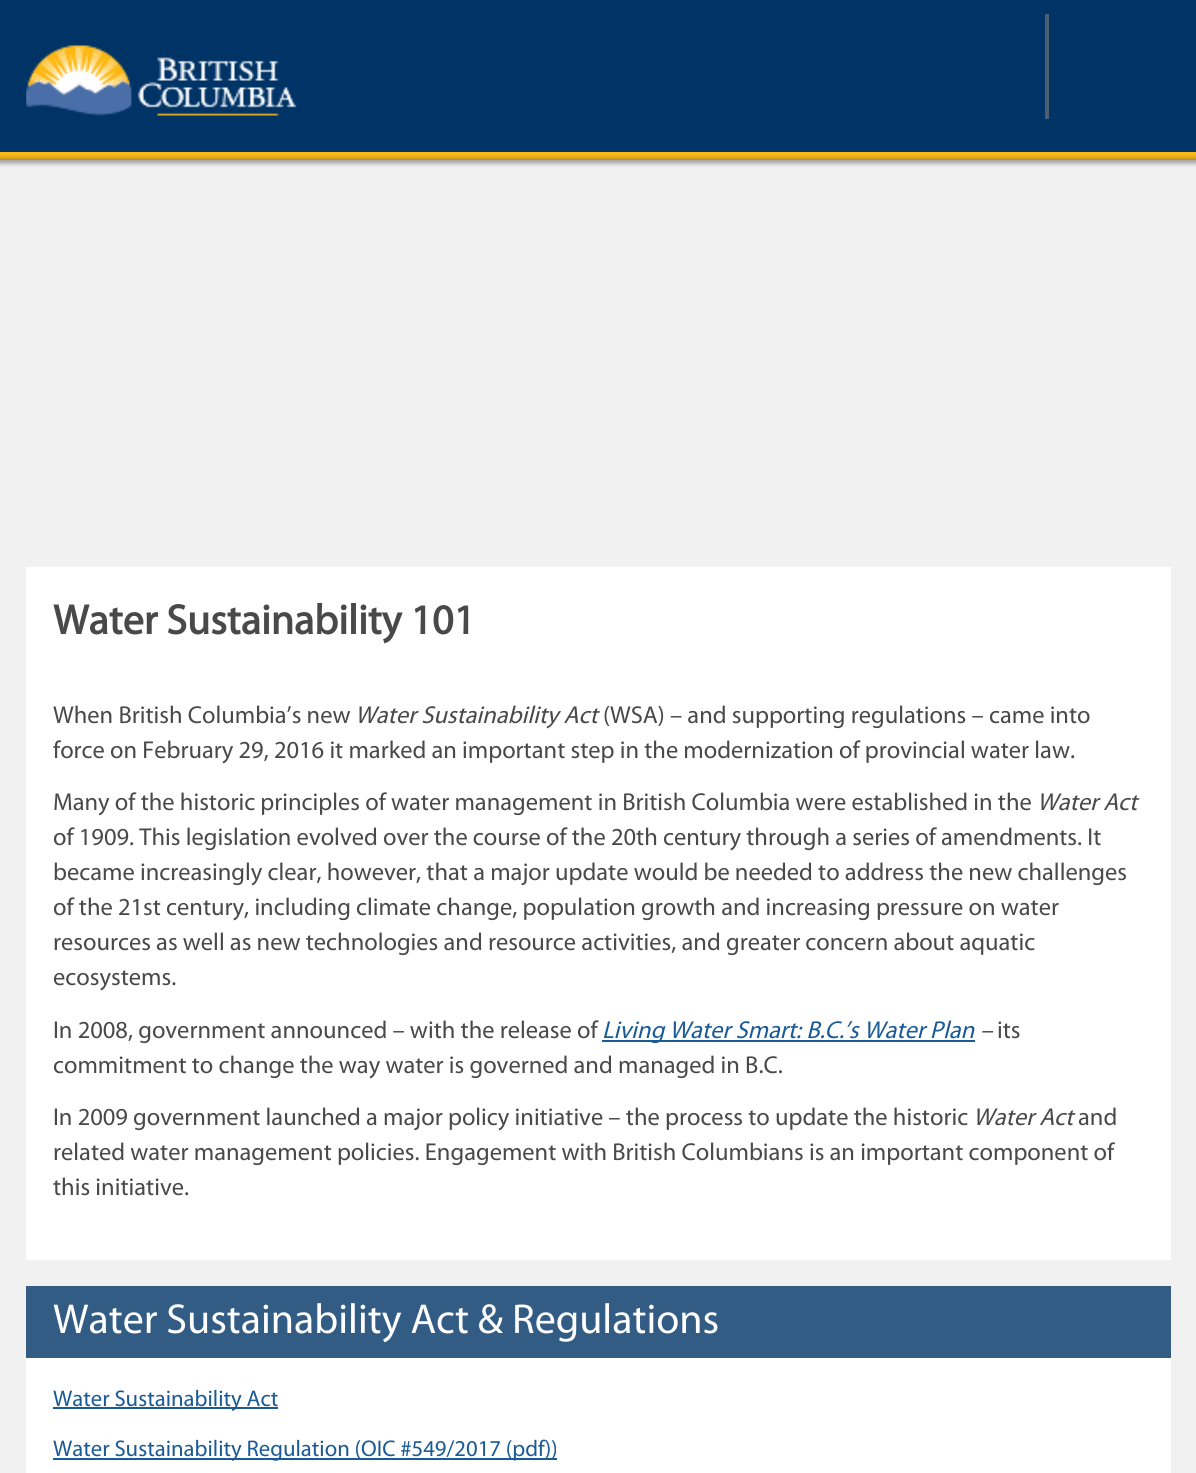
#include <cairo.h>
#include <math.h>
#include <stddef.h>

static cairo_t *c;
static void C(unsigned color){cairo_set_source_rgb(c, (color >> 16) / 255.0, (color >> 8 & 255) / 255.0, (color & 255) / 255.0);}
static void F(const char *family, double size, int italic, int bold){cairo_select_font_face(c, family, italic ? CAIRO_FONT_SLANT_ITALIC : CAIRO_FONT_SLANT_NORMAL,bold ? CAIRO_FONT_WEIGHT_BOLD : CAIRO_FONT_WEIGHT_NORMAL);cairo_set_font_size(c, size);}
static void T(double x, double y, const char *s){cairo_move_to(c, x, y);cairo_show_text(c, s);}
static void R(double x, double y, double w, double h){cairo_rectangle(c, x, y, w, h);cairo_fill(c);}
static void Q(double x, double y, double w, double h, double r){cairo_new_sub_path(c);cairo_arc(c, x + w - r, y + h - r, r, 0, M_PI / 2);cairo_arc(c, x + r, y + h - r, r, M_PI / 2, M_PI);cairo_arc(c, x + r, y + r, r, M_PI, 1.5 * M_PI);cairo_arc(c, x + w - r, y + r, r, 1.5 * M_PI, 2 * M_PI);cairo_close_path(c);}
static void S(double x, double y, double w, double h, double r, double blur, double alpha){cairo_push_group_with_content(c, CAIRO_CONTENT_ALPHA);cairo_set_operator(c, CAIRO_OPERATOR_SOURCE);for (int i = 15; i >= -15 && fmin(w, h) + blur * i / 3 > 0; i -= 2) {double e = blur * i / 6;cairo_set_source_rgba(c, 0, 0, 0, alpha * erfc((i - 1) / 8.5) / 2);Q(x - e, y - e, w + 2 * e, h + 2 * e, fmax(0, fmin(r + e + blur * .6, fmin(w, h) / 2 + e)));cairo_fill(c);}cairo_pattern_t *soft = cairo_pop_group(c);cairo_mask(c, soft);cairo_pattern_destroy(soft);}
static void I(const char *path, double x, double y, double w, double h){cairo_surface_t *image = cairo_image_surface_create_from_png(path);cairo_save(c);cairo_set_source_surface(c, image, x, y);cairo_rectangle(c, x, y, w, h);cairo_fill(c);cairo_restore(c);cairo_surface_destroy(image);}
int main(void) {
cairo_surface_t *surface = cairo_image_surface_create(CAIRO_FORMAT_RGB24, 1196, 1473);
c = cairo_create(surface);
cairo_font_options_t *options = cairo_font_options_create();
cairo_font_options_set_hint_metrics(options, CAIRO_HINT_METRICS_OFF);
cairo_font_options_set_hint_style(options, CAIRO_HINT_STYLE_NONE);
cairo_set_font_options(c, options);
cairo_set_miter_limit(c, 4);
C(0xf1f1f1);
cairo_paint(c);
C(0x003366);
R(0,0,1196,152);
C(0xfcba19);
R(0,152,1196,8);
I("1.png",26,45,271,71);
C(0x4b5e73);
R(1045,14,4,105);
C(0x333333);
S(-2,159,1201,4,0,2.5,.5);
C(0xffffff);
R(26,567,1145,693);
F("Myriad",42,0,1);
C(0x494949);
T(53,634,"Water Sustainability 101");
F("Myriad",24.5,0,0);
T(53,723,"When British Columbia’s new");
F("Myriad",24.5,1,0);
T(355,723,"Water Sustainability Act");
F("Myriad",24.5,0,0);
T(603,723,"(WSA) – and supporting regulations – came into");
T(53,758,"force on February 29, 2016 it marked an important step in the modernization of provincial water law.");
T(53,810,"Many of the historic principles of water management in British Columbia were established in the");
F("Myriad",24.5,1,0);
T(1037,810,"Water Act");
F("Myriad",24.5,0,0);
T(53,845,"of 1909. This legislation evolved over the course of the 20th century through a series of amendments. It");
T(53,880,"became increasingly clear, however, that a major update would be needed to address the new challenges");
T(53,915,"of the 21st century, including climate change, population growth and increasing pressure on water");
T(53,950,"resources as well as new technologies and resource activities, and greater concern about aquatic");
T(53,985,"ecosystems.");
T(53,1038,"In 2008, government announced – with the release of");
C(0x1a5a96);
R(602,1040,373,2);
F("Myriad",24.5,1,0);
T(602,1038,"Living Water Smart: B.C.’s Water Plan");
C(0x494949);
T(980,1038,"–");
F("Myriad",24.5,0,0);
T(997,1038,"its");
T(53,1073,"commitment to change the way water is governed and managed in B.C.");
T(53,1125,"In 2009 government launched a major policy initiative – the process to update the historic");
F("Myriad",24.5,1,0);
T(973,1125,"Water Act");
F("Myriad",24.5,0,0);
T(1078,1125,"and");
T(53,1160,"related water management policies. Engagement with British Columbians is an important component of");
T(53,1195,"this initiative.");
C(0xffffff);
R(26,1358,1145,115);
C(0x335c85);
R(26,1286,1145,72);
F("Myriad",42,0,0);
C(0xffffff);
T(53,1333,"Water Sustainability Act & Regulations");
C(0x1a5a96);
R(53,1407,225,2);
F("Myriad",22.75,0,0);
T(53,1406,"Water Sustainability Act");
R(53,1458,504,2);
T(53,1456,"Water Sustainability Regulation (OIC #549/2017 (pdf))");
cairo_surface_write_to_png(surface, "o.png");
cairo_font_options_destroy(options);
cairo_destroy(c);
cairo_surface_destroy(surface);
return 0;
}
